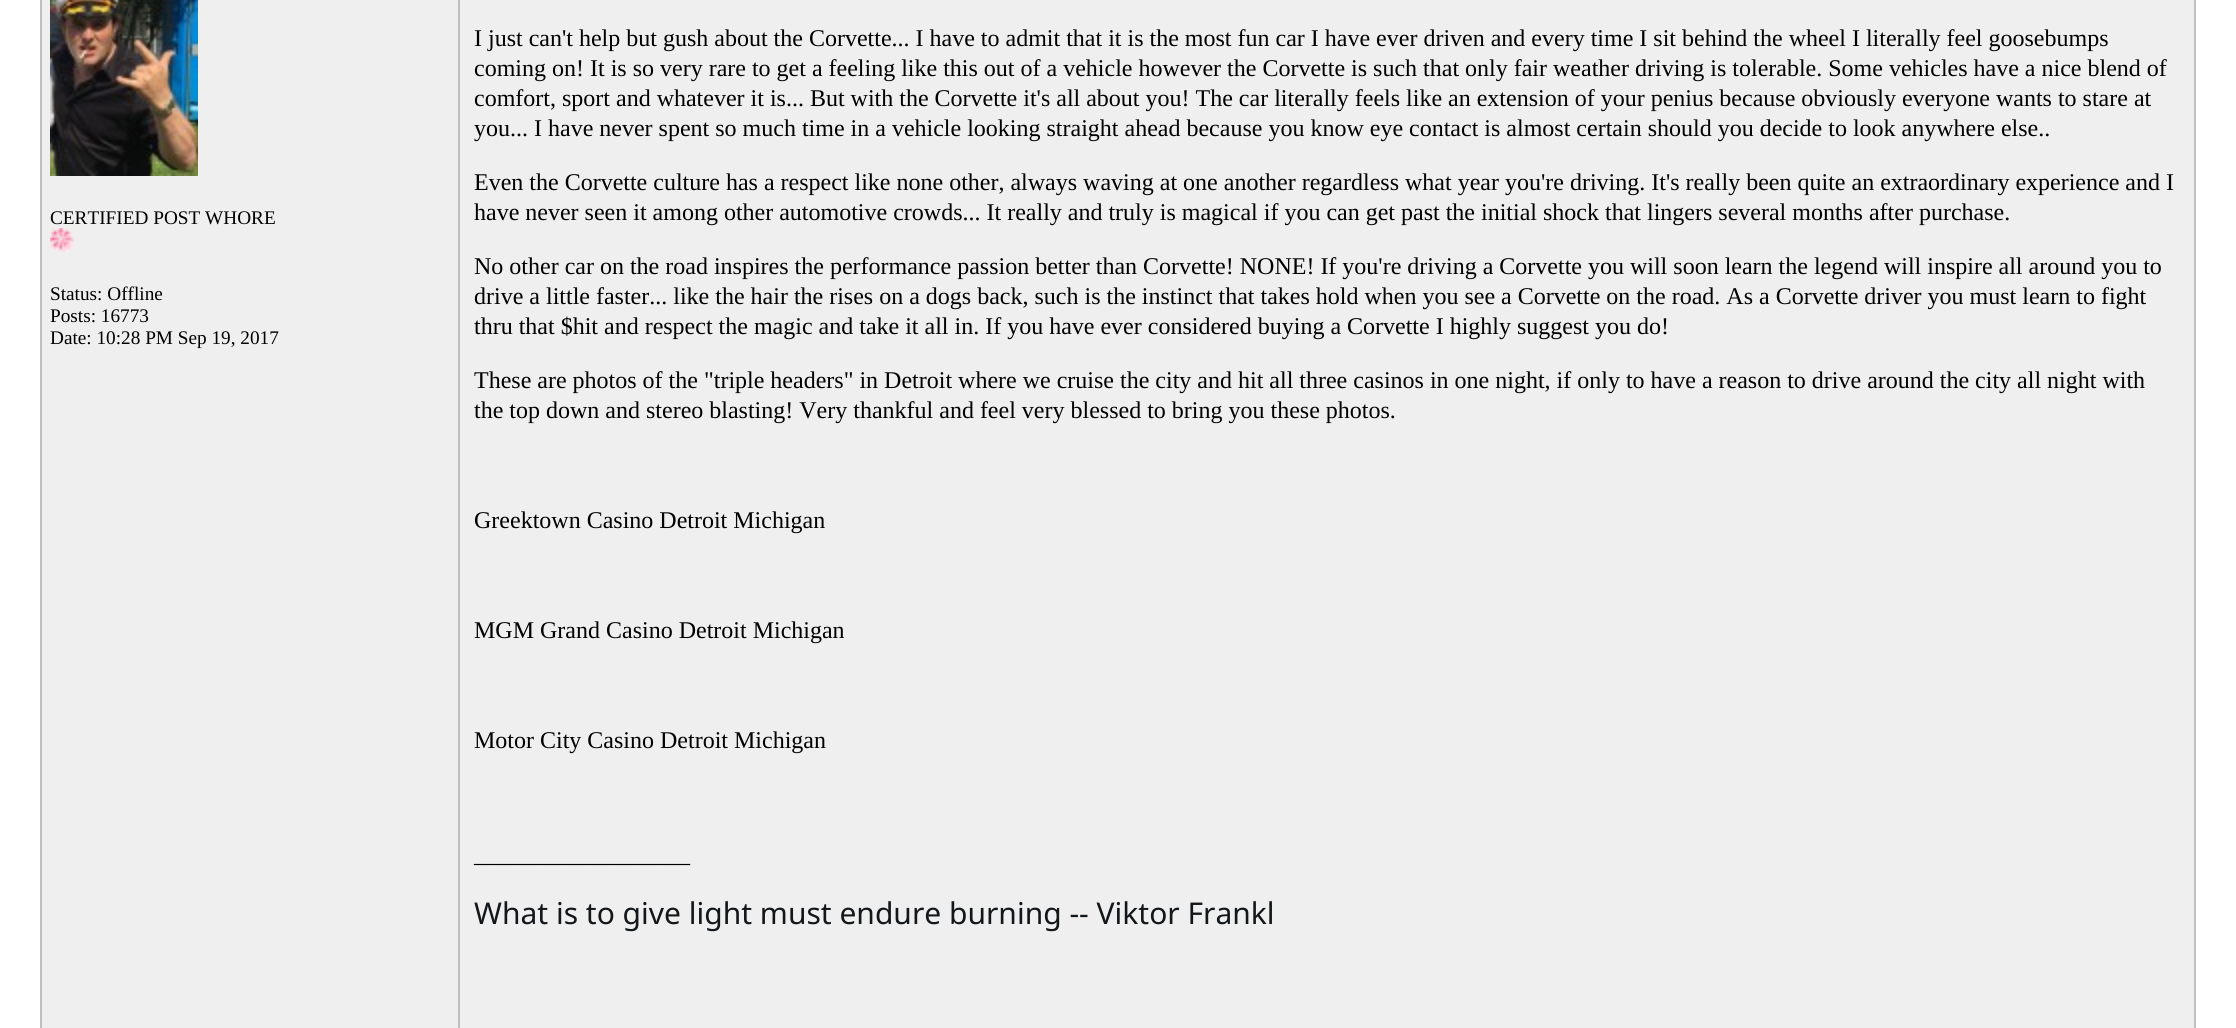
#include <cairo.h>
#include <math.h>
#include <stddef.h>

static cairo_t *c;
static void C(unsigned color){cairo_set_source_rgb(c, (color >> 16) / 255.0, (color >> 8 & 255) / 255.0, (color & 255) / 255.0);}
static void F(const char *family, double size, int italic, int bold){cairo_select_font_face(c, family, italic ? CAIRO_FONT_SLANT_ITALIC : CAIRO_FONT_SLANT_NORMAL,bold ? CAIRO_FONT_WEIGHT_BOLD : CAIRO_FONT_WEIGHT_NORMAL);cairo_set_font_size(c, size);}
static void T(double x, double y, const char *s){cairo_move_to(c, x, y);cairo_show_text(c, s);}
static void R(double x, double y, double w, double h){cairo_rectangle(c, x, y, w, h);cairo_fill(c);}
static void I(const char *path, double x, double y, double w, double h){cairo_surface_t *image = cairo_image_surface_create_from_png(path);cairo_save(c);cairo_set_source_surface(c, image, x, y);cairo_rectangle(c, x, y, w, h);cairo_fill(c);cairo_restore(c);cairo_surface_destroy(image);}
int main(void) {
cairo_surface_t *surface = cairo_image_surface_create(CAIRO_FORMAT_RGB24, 2236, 1028);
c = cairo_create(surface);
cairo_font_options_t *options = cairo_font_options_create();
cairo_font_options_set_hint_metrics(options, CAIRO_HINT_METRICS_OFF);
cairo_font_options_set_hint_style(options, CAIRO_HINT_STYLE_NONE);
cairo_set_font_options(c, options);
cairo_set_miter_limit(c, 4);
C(0xffffff);
cairo_paint(c);
C(0xc0c0c0);
R(2194,0,2,1028);
R(40,0,2,1028);
C(0xefefef);
R(42,0,416,1028);
I("1.png",50,0,148,176);
F("Liberation Serif",19.25,0,0);
C(0x000000);
T(50,224,"CERTIFIED POST WHORE");
I("2.png",50,228,24,24);
T(50,300,"Status: Offline");
T(50,322,"Posts: 16773");
T(50,344,"Date: 10:28 PM Sep 19, 2017");
C(0xefefef);
R(460,0,1734,1028);
C(0xc0c0c0);
R(458,0,2,1028);
F("Liberation Serif",24,0,0);
C(0x000000);
T(474,46,"I just can't help but gush about the Corvette... I have to admit that it is the most fun car I have ever driven and every time I sit behind the wheel I literally feel goosebumps");
T(474,76,"coming on! It is so very rare to get a feeling like this out of a vehicle however the Corvette is such that only fair weather driving is tolerable. Some vehicles have a nice blend of");
T(474,106,"comfort, sport and whatever it is... But with the Corvette it's all about you! The car literally feels like an extension of your penius because obviously everyone wants to stare at");
T(474,136,"you... I have never spent so much time in a vehicle looking straight ahead because you know eye contact is almost certain should you decide to look anywhere else..");
T(474,190,"Even the Corvette culture has a respect like none other, always waving at one another regardless what year you're driving. It's really been quite an extraordinary experience and I");
T(474,220,"have never seen it among other automotive crowds... It really and truly is magical if you can get past the initial shock that lingers several months after purchase.");
T(474,274,"No other car on the road inspires the performance passion better than Corvette! NONE! If you're driving a Corvette you will soon learn the legend will inspire all around you to");
T(474,304,"drive a little faster... like the hair the rises on a dogs back, such is the instinct that takes hold when you see a Corvette on the road. As a Corvette driver you must learn to fight");
T(474,334,"thru that $hit and respect the magic and take it all in. If you have ever considered buying a Corvette I highly suggest you do!");
T(474,388,"These are photos of the \"triple headers\" in Detroit where we cruise the city and hit all three casinos in one night, if only to have a reason to drive around the city all night with");
T(474,418,"the top down and stereo blasting! Very thankful and feel very blessed to bring you these photos.");
T(474,528,"Greektown Casino Detroit Michigan");
T(474,638,"MGM Grand Casino Detroit Michigan");
T(474,748,"Motor City Casino Detroit Michigan");
T(474,862,"__________________");
F("Noto Sans",30,0,0);
C(0x14171a);
T(474,924,"What is to give light must endure burning -- Viktor Frankl");
cairo_surface_write_to_png(surface, "o.png");
cairo_font_options_destroy(options);
cairo_destroy(c);
cairo_surface_destroy(surface);
return 0;
}
